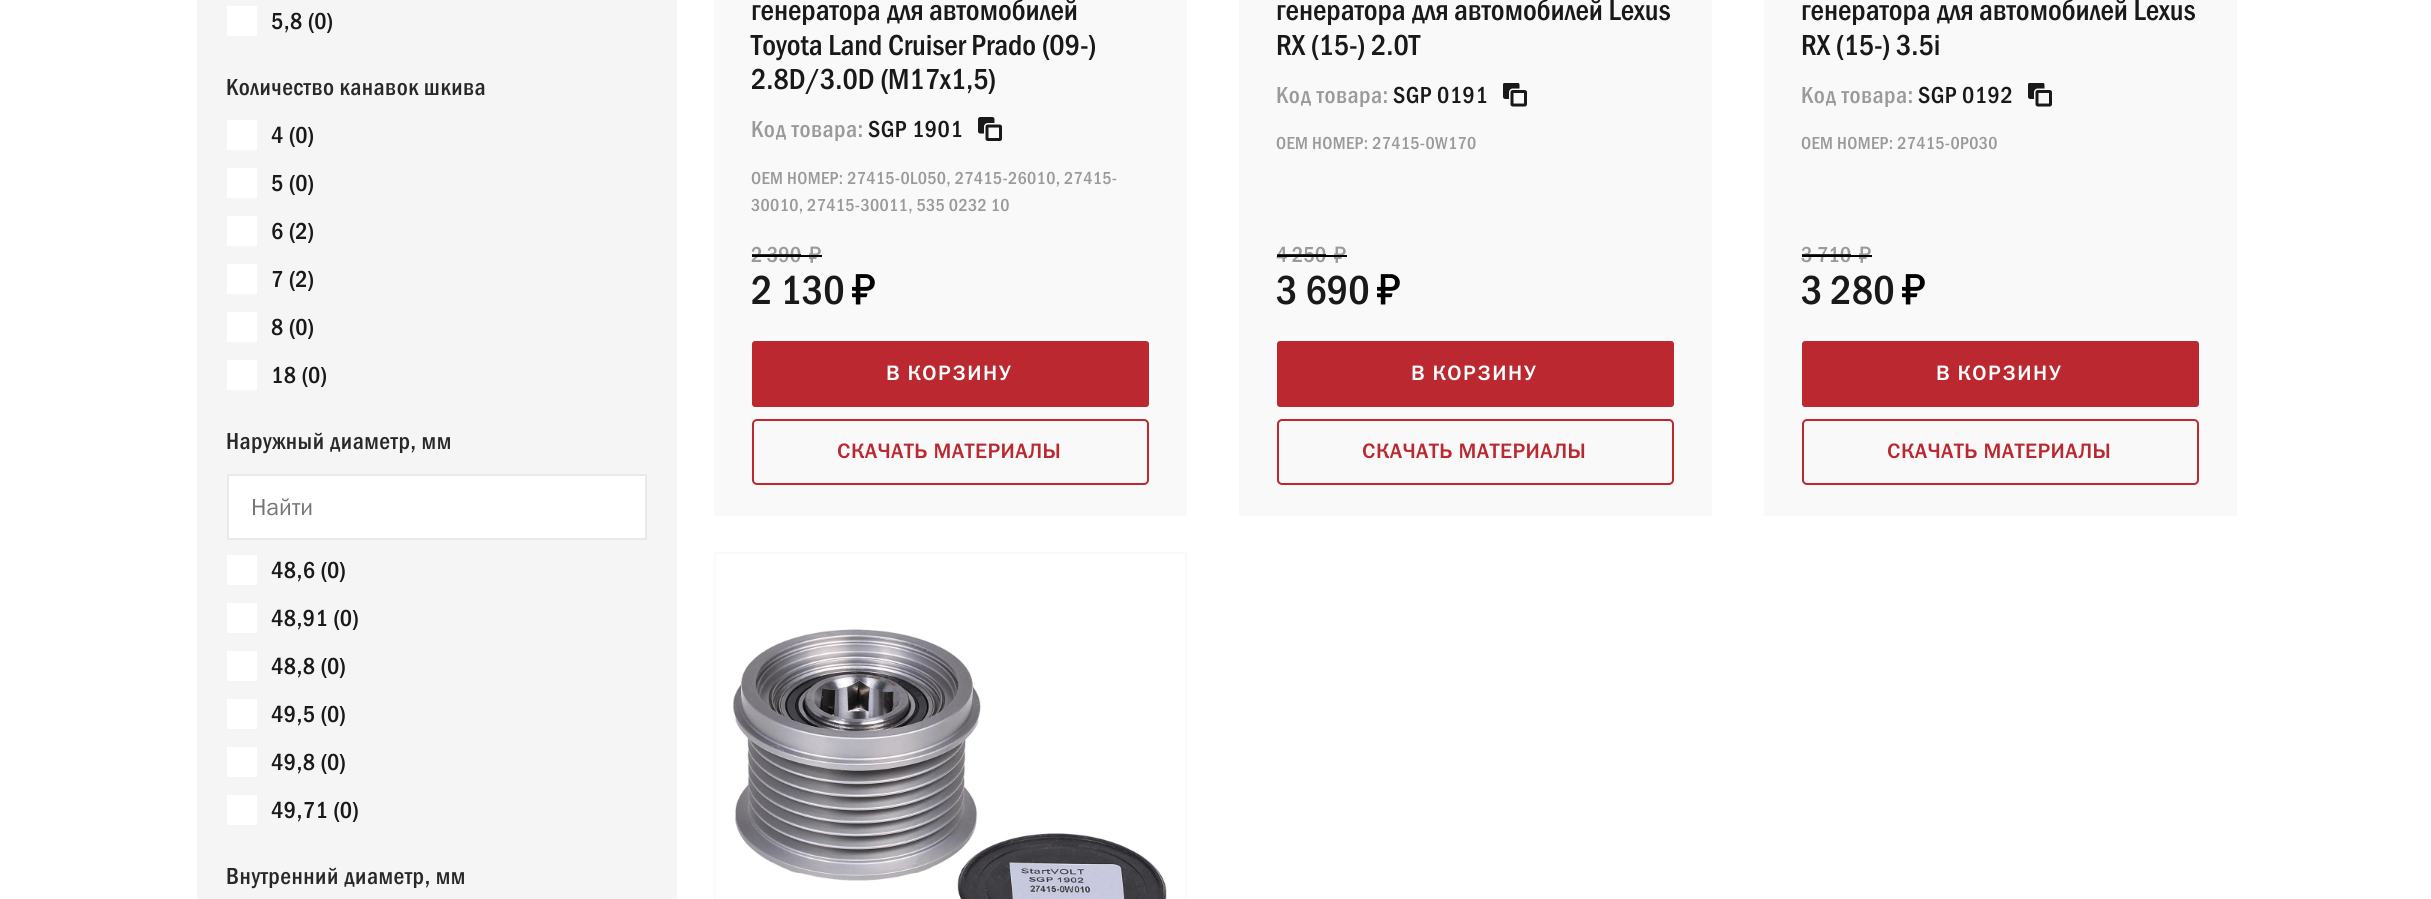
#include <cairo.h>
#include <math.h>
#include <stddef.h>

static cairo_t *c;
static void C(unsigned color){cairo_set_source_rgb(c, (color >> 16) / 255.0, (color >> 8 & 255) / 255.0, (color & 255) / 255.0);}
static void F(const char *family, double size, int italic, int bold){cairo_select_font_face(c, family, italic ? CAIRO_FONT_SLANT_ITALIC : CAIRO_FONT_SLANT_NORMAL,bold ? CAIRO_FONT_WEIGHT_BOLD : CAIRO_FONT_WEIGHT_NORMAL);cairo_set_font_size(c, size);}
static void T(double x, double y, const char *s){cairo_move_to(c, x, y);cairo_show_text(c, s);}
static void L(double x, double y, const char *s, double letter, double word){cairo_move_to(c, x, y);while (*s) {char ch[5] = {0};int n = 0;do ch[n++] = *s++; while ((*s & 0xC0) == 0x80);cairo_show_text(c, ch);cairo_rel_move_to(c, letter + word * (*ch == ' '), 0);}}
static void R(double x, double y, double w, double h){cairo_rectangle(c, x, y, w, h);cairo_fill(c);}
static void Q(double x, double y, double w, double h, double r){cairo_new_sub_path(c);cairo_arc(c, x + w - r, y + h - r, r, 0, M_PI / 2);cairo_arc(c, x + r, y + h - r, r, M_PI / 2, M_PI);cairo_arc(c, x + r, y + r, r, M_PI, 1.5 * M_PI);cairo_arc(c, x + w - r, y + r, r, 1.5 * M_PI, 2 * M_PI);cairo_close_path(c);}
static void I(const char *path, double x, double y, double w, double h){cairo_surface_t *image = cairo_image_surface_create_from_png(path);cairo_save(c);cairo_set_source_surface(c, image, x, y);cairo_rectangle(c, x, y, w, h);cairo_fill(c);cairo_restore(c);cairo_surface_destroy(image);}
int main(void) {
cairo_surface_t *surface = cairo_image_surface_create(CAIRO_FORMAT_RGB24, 2431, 899);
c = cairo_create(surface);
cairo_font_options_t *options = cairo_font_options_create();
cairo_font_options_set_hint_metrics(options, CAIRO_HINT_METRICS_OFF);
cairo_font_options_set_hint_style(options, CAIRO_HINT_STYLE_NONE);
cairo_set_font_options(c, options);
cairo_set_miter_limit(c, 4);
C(0xffffff);
cairo_paint(c);
C(0xf5f5f5);
R(197,0,480,899);
C(0xffffff);
R(227,6,30,30);
F("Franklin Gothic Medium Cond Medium",24,0,0);
C(0x1a1919);
L(271,29,"5,8 (0)",.5,0);
C(0x282828);
L(226,95,"Количество канавок шкива",.5,0);
C(0xffffff);
R(227,120,30,30);
C(0x1a1919);
L(271,143,"4 (0)",.5,0);
C(0xffffff);
R(227,168,30,30);
C(0x1a1919);
L(271,191,"5 (0)",.5,0);
C(0xffffff);
R(227,216,30,30);
C(0x1a1919);
L(271,239,"6 (2)",.5,0);
C(0xffffff);
R(227,264,30,30);
C(0x1a1919);
L(271,287,"7 (2)",.5,0);
C(0xffffff);
R(227,312,30,30);
C(0x1a1919);
L(271,335,"8 (0)",.5,0);
C(0xffffff);
R(227,360,30,30);
C(0x1a1919);
L(271,383,"18 (0)",.5,0);
C(0x282828);
L(226,449,"Наружный диаметр, мм",.5,0);
C(0xffffff);
cairo_rectangle(c,228,475,418,64);
cairo_fill_preserve(c);
C(0xe9e9e9);
cairo_stroke(c);
F("Franklin Gothic",24,0,0);
C(0x757575);
T(251,515,"Найти");
C(0xffffff);
R(227,555,30,30);
F("Franklin Gothic Medium Cond Medium",24,0,0);
C(0x1a1919);
L(271,578,"48,6 (0)",.5,0);
C(0xffffff);
R(227,603,30,30);
C(0x1a1919);
L(271,626,"48,91 (0)",.5,0);
C(0xffffff);
R(227,651,30,30);
C(0x1a1919);
L(271,674,"48,8 (0)",.5,0);
C(0xffffff);
R(227,699,30,30);
C(0x1a1919);
L(271,722,"49,5 (0)",.5,0);
C(0xffffff);
R(227,747,30,30);
C(0x1a1919);
L(271,770,"49,8 (0)",.5,0);
C(0xffffff);
R(227,795,30,30);
C(0x1a1919);
L(271,818,"49,71 (0)",.5,0);
C(0x282828);
L(226,884,"Внутренний диаметр, мм",.5,0);
cairo_rectangle(c,715,-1,471,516);
C(0xf9f9f9);
cairo_stroke(c);
R(716,0,469,514);
F("Franklin Gothic Medium Cond Medium",30,0,0);
C(0x1a1919);
T(751,20,"генератора для автомобилей");
T(751,55,"Toyota Land Cruiser Prado (09-)");
T(751,89,"2.8D/3.0D (M17x1,5)");
F("Franklin Gothic Medium Cond Medium",24,0,0);
C(0x9a9a9a);
L(751,137,"Код товара:",.5,0);
C(0x1a1919);
L(868,137,"SGP 1901",.5,0);
I("1.png",978,117,24,24);
F("Franklin Gothic Medium Cond Medium",18,0,0);
C(0x9a9a9a);
L(751,184,"OEM НОМЕР: 27415-0L050, 27415-26010, 27415-",.35,0);
L(751,211,"30010, 27415-30011, 535 0232 10",.35,0);
F("Franklin Gothic Medium Cond Medium",22.5,0,0);
T(751,262,"2 390");
C(0x2c2d2e);
R(752,254,49,1);
I("2.png",809,246,12,17);
C(0x000000);
R(752,255,70,2);
F("Franklin Gothic Medium Cond Medium",42,0,0);
C(0x1a1919);
T(751,304,"2 130");
I("3.png",852,274,23,31);
C(0xbb2830);
Q(752,341,397,66,3);
cairo_fill(c);
F("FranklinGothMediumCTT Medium",21,0,0);
C(0xffffff);
L(886,380,"В КОРЗИНУ",1.5,0);
Q(753,420,395,64,4);
C(0xbb2830);
cairo_stroke(c);
L(837,458,"СКАЧАТЬ МАТЕРИАЛЫ",.4,0);
cairo_rectangle(c,1240,-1,471,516);
C(0xf9f9f9);
cairo_stroke(c);
R(1241,0,469,514);
F("Franklin Gothic Medium Cond Medium",30,0,0);
C(0x1a1919);
T(1276,20,"генератора для автомобилей Lexus");
T(1276,55,"RX (15-) 2.0T");
F("Franklin Gothic Medium Cond Medium",24,0,0);
C(0x9a9a9a);
L(1276,103,"Код товара:",.5,0);
C(0x1a1919);
L(1393,103,"SGP 0191",.5,0);
I("4.png",1503,83,24,24);
F("Franklin Gothic Medium Cond Medium",18,0,0);
C(0x9a9a9a);
L(1276,149,"OEM НОМЕР: 27415-0W170",.35,0);
F("Franklin Gothic Medium Cond Medium",22.5,0,0);
T(1276,262,"4 250");
C(0x2c2d2e);
R(1277,254,49,1);
I("2.png",1334,246,12,17);
C(0x000000);
R(1277,255,70,2);
F("Franklin Gothic Medium Cond Medium",42,0,0);
C(0x1a1919);
T(1276,304,"3 690");
I("3.png",1377,274,23,31);
C(0xbb2830);
Q(1277,341,397,66,3);
cairo_fill(c);
F("FranklinGothMediumCTT Medium",21,0,0);
C(0xffffff);
L(1411,380,"В КОРЗИНУ",1.5,0);
Q(1278,420,395,64,4);
C(0xbb2830);
cairo_stroke(c);
L(1362,458,"СКАЧАТЬ МАТЕРИАЛЫ",.4,0);
cairo_rectangle(c,1765,-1,471,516);
C(0xf9f9f9);
cairo_stroke(c);
R(1766,0,469,514);
F("Franklin Gothic Medium Cond Medium",30,0,0);
C(0x1a1919);
T(1801,20,"генератора для автомобилей Lexus");
T(1801,55,"RX (15-) 3.5i");
F("Franklin Gothic Medium Cond Medium",24,0,0);
C(0x9a9a9a);
L(1801,103,"Код товара:",.5,0);
C(0x1a1919);
L(1918,103,"SGP 0192",.5,0);
I("4.png",2028,83,24,24);
F("Franklin Gothic Medium Cond Medium",18,0,0);
C(0x9a9a9a);
L(1801,149,"OEM НОМЕР: 27415-0P030",.35,0);
F("Franklin Gothic Medium Cond Medium",22.5,0,0);
T(1801,262,"3 710");
C(0x2c2d2e);
R(1802,254,49,1);
I("2.png",1859,246,12,17);
C(0x000000);
R(1802,255,70,2);
F("Franklin Gothic Medium Cond Medium",42,0,0);
C(0x1a1919);
T(1801,304,"3 280");
I("3.png",1902,274,23,31);
C(0xbb2830);
Q(1802,341,397,66,3);
cairo_fill(c);
F("FranklinGothMediumCTT Medium",21,0,0);
C(0xffffff);
L(1936,380,"В КОРЗИНУ",1.5,0);
Q(1803,420,395,64,4);
C(0xbb2830);
cairo_stroke(c);
L(1887,458,"СКАЧАТЬ МАТЕРИАЛЫ",.4,0);
cairo_rectangle(c,715,553,471,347);
C(0xf9f9f9);
cairo_stroke(c);
I("5.png",733,629,435,270);
cairo_surface_write_to_png(surface, "o.png");
cairo_font_options_destroy(options);
cairo_destroy(c);
cairo_surface_destroy(surface);
return 0;
}
